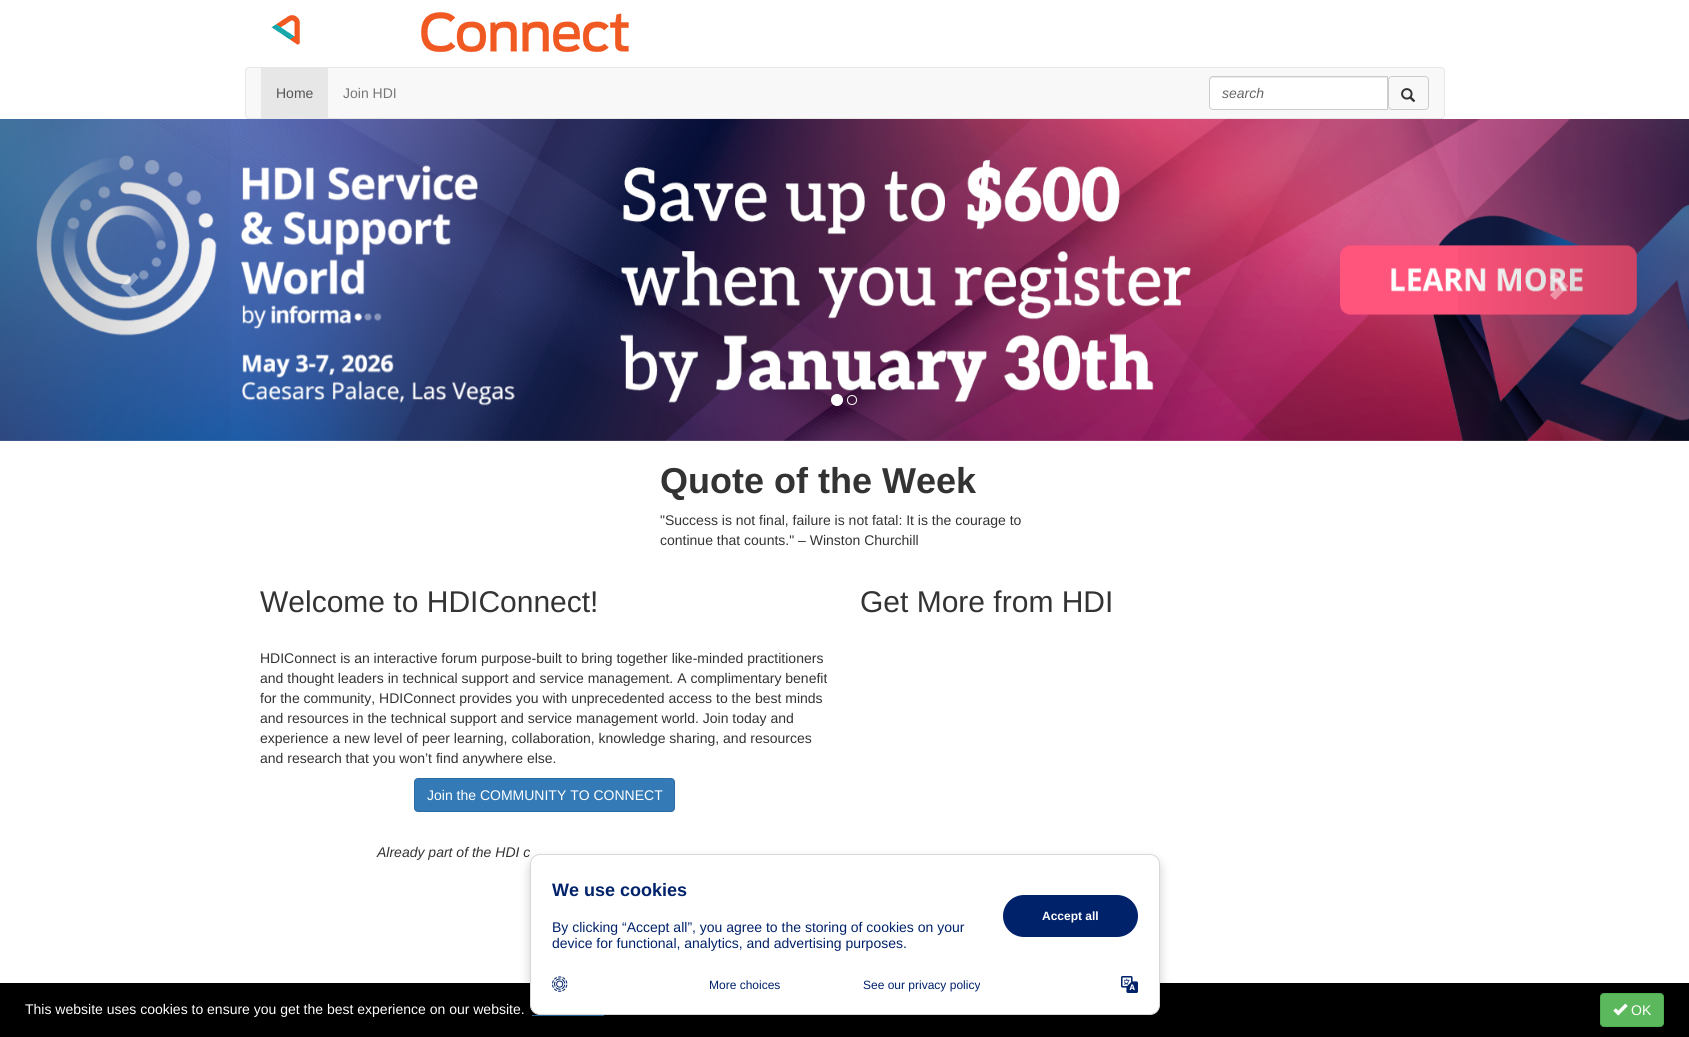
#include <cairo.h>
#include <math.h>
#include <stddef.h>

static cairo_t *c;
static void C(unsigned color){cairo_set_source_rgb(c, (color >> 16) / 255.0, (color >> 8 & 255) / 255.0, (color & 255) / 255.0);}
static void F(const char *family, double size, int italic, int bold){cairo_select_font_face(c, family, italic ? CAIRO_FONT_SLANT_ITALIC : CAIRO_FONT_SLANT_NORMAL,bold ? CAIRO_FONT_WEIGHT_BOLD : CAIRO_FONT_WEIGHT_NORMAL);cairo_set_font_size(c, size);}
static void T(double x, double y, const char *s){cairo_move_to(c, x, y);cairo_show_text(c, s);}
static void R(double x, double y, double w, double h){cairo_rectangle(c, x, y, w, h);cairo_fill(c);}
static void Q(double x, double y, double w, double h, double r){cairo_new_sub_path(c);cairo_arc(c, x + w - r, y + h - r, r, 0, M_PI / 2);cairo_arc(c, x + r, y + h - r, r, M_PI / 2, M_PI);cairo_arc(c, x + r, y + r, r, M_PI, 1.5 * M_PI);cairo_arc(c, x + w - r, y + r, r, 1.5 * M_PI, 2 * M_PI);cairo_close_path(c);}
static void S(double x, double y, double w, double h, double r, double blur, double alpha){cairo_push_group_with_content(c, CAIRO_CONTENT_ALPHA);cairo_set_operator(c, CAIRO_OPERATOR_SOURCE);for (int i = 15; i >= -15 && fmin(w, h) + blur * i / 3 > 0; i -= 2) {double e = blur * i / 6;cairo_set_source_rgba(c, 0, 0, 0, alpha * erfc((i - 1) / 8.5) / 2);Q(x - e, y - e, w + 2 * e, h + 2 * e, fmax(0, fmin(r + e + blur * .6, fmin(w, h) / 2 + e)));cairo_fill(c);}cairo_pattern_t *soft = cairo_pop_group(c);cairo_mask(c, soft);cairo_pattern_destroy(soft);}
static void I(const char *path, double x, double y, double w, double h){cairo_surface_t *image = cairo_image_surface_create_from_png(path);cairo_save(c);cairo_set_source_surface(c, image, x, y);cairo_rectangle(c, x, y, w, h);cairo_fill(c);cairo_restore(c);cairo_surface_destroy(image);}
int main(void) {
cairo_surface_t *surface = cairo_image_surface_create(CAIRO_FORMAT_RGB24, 1689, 1037);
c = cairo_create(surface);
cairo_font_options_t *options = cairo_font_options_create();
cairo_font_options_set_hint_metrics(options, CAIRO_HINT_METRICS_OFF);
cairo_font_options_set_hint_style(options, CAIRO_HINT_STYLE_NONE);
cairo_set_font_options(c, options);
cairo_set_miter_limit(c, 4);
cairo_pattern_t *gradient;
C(0xffffff);
cairo_paint(c);
I("1.png",271,12,358,40);
C(0xf8f8f8);
Q(245.5,67.5,1199,51,3.5);
cairo_fill_preserve(c);
C(0xe7e7e7);
cairo_set_line_width(c,1);
cairo_stroke(c);
R(261,68,67,50);
F("Liberation Sans",14,0,0);
C(0x555555);
T(276,98,"Home");
C(0x777777);
T(343,98,"Join HDI");
C(0xffffff);
cairo_new_path(c);
cairo_move_to(c,1213,76);
cairo_line_to(c,1388,76);
cairo_line_to(c,1388,110);
cairo_line_to(c,1213,110);
cairo_curve_to(c,1211,110,1209,108,1209,106);
cairo_line_to(c,1209,80);
cairo_curve_to(c,1209,78,1211,76,1213,76);
cairo_close_path(c);
cairo_fill(c);
C(0xececec);
cairo_new_path(c);
cairo_move_to(c,1213,78);
cairo_line_to(c,1387,78);
cairo_line_to(c,1387,77);
cairo_line_to(c,1212,77);
cairo_curve_to(c,1210,78,1210,79,1210,81);
cairo_curve_to(c,1210,79,1211,78,1213,78);
cairo_close_path(c);
cairo_fill(c);
cairo_new_path(c);
cairo_move_to(c,1213,76.5);
cairo_line_to(c,1387.5,76.5);
cairo_line_to(c,1387.5,109.5);
cairo_line_to(c,1213,109.5);
cairo_curve_to(c,1211,109.5,1209.5,108,1209.5,106);
cairo_line_to(c,1209.5,80);
cairo_curve_to(c,1209.5,78,1211,76.5,1213,76.5);
cairo_close_path(c);
C(0xcccccc);
cairo_stroke(c);
F("Liberation Sans",14,1,0);
C(0x666666);
T(1222,98,"search");
Q(1388.5,76.5,40,33,3.5);
C(0xcccccc);
cairo_stroke(c);
I("2.png",1401,88,15,14);
I("3.png",0,119,1689,322);
gradient = cairo_pattern_create_linear(0,280,253,280);
cairo_pattern_add_color_stop_rgba(gradient,0,0,0,0,.25);
cairo_pattern_add_color_stop_rgba(gradient,1,0,0,0,0);
cairo_set_source(c,gradient);
cairo_pattern_destroy(gradient);
R(0,119,231,322);
cairo_set_source_rgba(c,1,1,1,0.4);
cairo_new_path(c);
cairo_move_to(c,139,277.5);
cairo_line_to(c,130.5,286.5);
cairo_line_to(c,139,295);
cairo_line_to(c,134,300);
cairo_line_to(c,120.5,286.5);
cairo_line_to(c,134,272.5);
cairo_close_path(c);
cairo_fill(c);
C(0xffffff);
cairo_arc(c,837,400,5.5,0,2 * M_PI);
cairo_fill_preserve(c);
cairo_stroke(c);
cairo_arc(c,852,400,4.5,0,2 * M_PI);
cairo_stroke(c);
gradient = cairo_pattern_create_linear(1436,280,1689,280);
cairo_pattern_add_color_stop_rgba(gradient,0,0,0,0,0);
cairo_pattern_add_color_stop_rgba(gradient,1,0,0,0,.25);
cairo_set_source(c,gradient);
cairo_pattern_destroy(gradient);
R(1458,119,231,322);
cairo_set_source_rgba(c,1,1,1,0.4);
cairo_new_path(c);
cairo_move_to(c,1568.5,286.5);
cairo_line_to(c,1555,300);
cairo_line_to(c,1550,295);
cairo_line_to(c,1558.5,286.5);
cairo_line_to(c,1550,277.5);
cairo_line_to(c,1555,272.5);
cairo_close_path(c);
cairo_fill(c);
F("Liberation Sans",36,0,1);
C(0x333333);
T(660,493,"Quote of the Week");
F("Liberation Sans",14,0,0);
T(660,525,"\"Success is not final, failure is not fatal: It is the courage to");
T(660,545,"continue that counts.\" – Winston Churchill");
F("Liberation Sans",30,0,0);
T(260,612,"Welcome to HDIConnect!");
F("Liberation Sans",14,0,0);
T(260,663,"HDIConnect is an interactive forum purpose-built to bring together like-minded practitioners");
T(260,683,"and thought leaders in technical support and service management. A complimentary benefit");
T(260,703,"for the community, HDIConnect provides you with unprecedented access to the best minds");
T(260,723,"and resources in the technical support and service management world. Join today and");
T(260,743,"experience a new level of peer learning, collaboration, knowledge sharing, and resources");
T(260,763,"and research that you won’t find anywhere else.");
C(0x337ab7);
Q(414.5,778.5,260,33,3.5);
cairo_fill_preserve(c);
C(0x2e6da4);
cairo_stroke(c);
C(0xffffff);
T(427,800,"Join the COMMUNITY TO CONNECT");
F("Liberation Sans",14,1,0);
C(0x333333);
T(377,857,"Already part of the HDI c");
F("Liberation Sans",30,0,0);
T(860,612,"Get More from HDI");
C(0x000000);
R(0,983,1689,54);
F("Liberation Sans",14,0,0);
C(0xffffff);
T(25,1014,"This website uses cookies to ensure you get the best experience on our website.");
C(0x2e6da4);
R(532,1015,72,1);
C(0x5cb85c);
Q(1600.5,993.5,63,33,3.5);
cairo_fill_preserve(c);
C(0x4cae4c);
cairo_stroke(c);
I("4.png",1613,1003,15,13);
C(0xffffff);
T(1631,1015,"OK");
C(0x000000);
S(530,859,630,161,10,5,.2);
C(0xffffff);
Q(530.5,854.5,629,160,9.5);
cairo_fill_preserve(c);
C(0xd8d8d8);
cairo_stroke(c);
F("Liberation Sans",18,0,1);
C(0x00226a);
T(552,896,"We use cookies");
F("Liberation Sans",14,0,0);
T(552,932,"By clicking “Accept all”, you agree to the storing of cookies on your");
T(552,948,"device for functional, analytics, and advertising purposes.");
Q(1003,895,135,42,21);
cairo_fill(c);
F("Liberation Sans",12,0,1);
C(0xffffff);
T(1042,920,"Accept all");
I("5.png",552,976,16,16);
F("Liberation Sans",12,0,0);
C(0x00226a);
T(709,989,"More choices");
T(863,989,"See our privacy policy");
I("6.png",1121,976,17,17);
cairo_surface_write_to_png(surface, "o.png");
cairo_font_options_destroy(options);
cairo_destroy(c);
cairo_surface_destroy(surface);
return 0;
}
